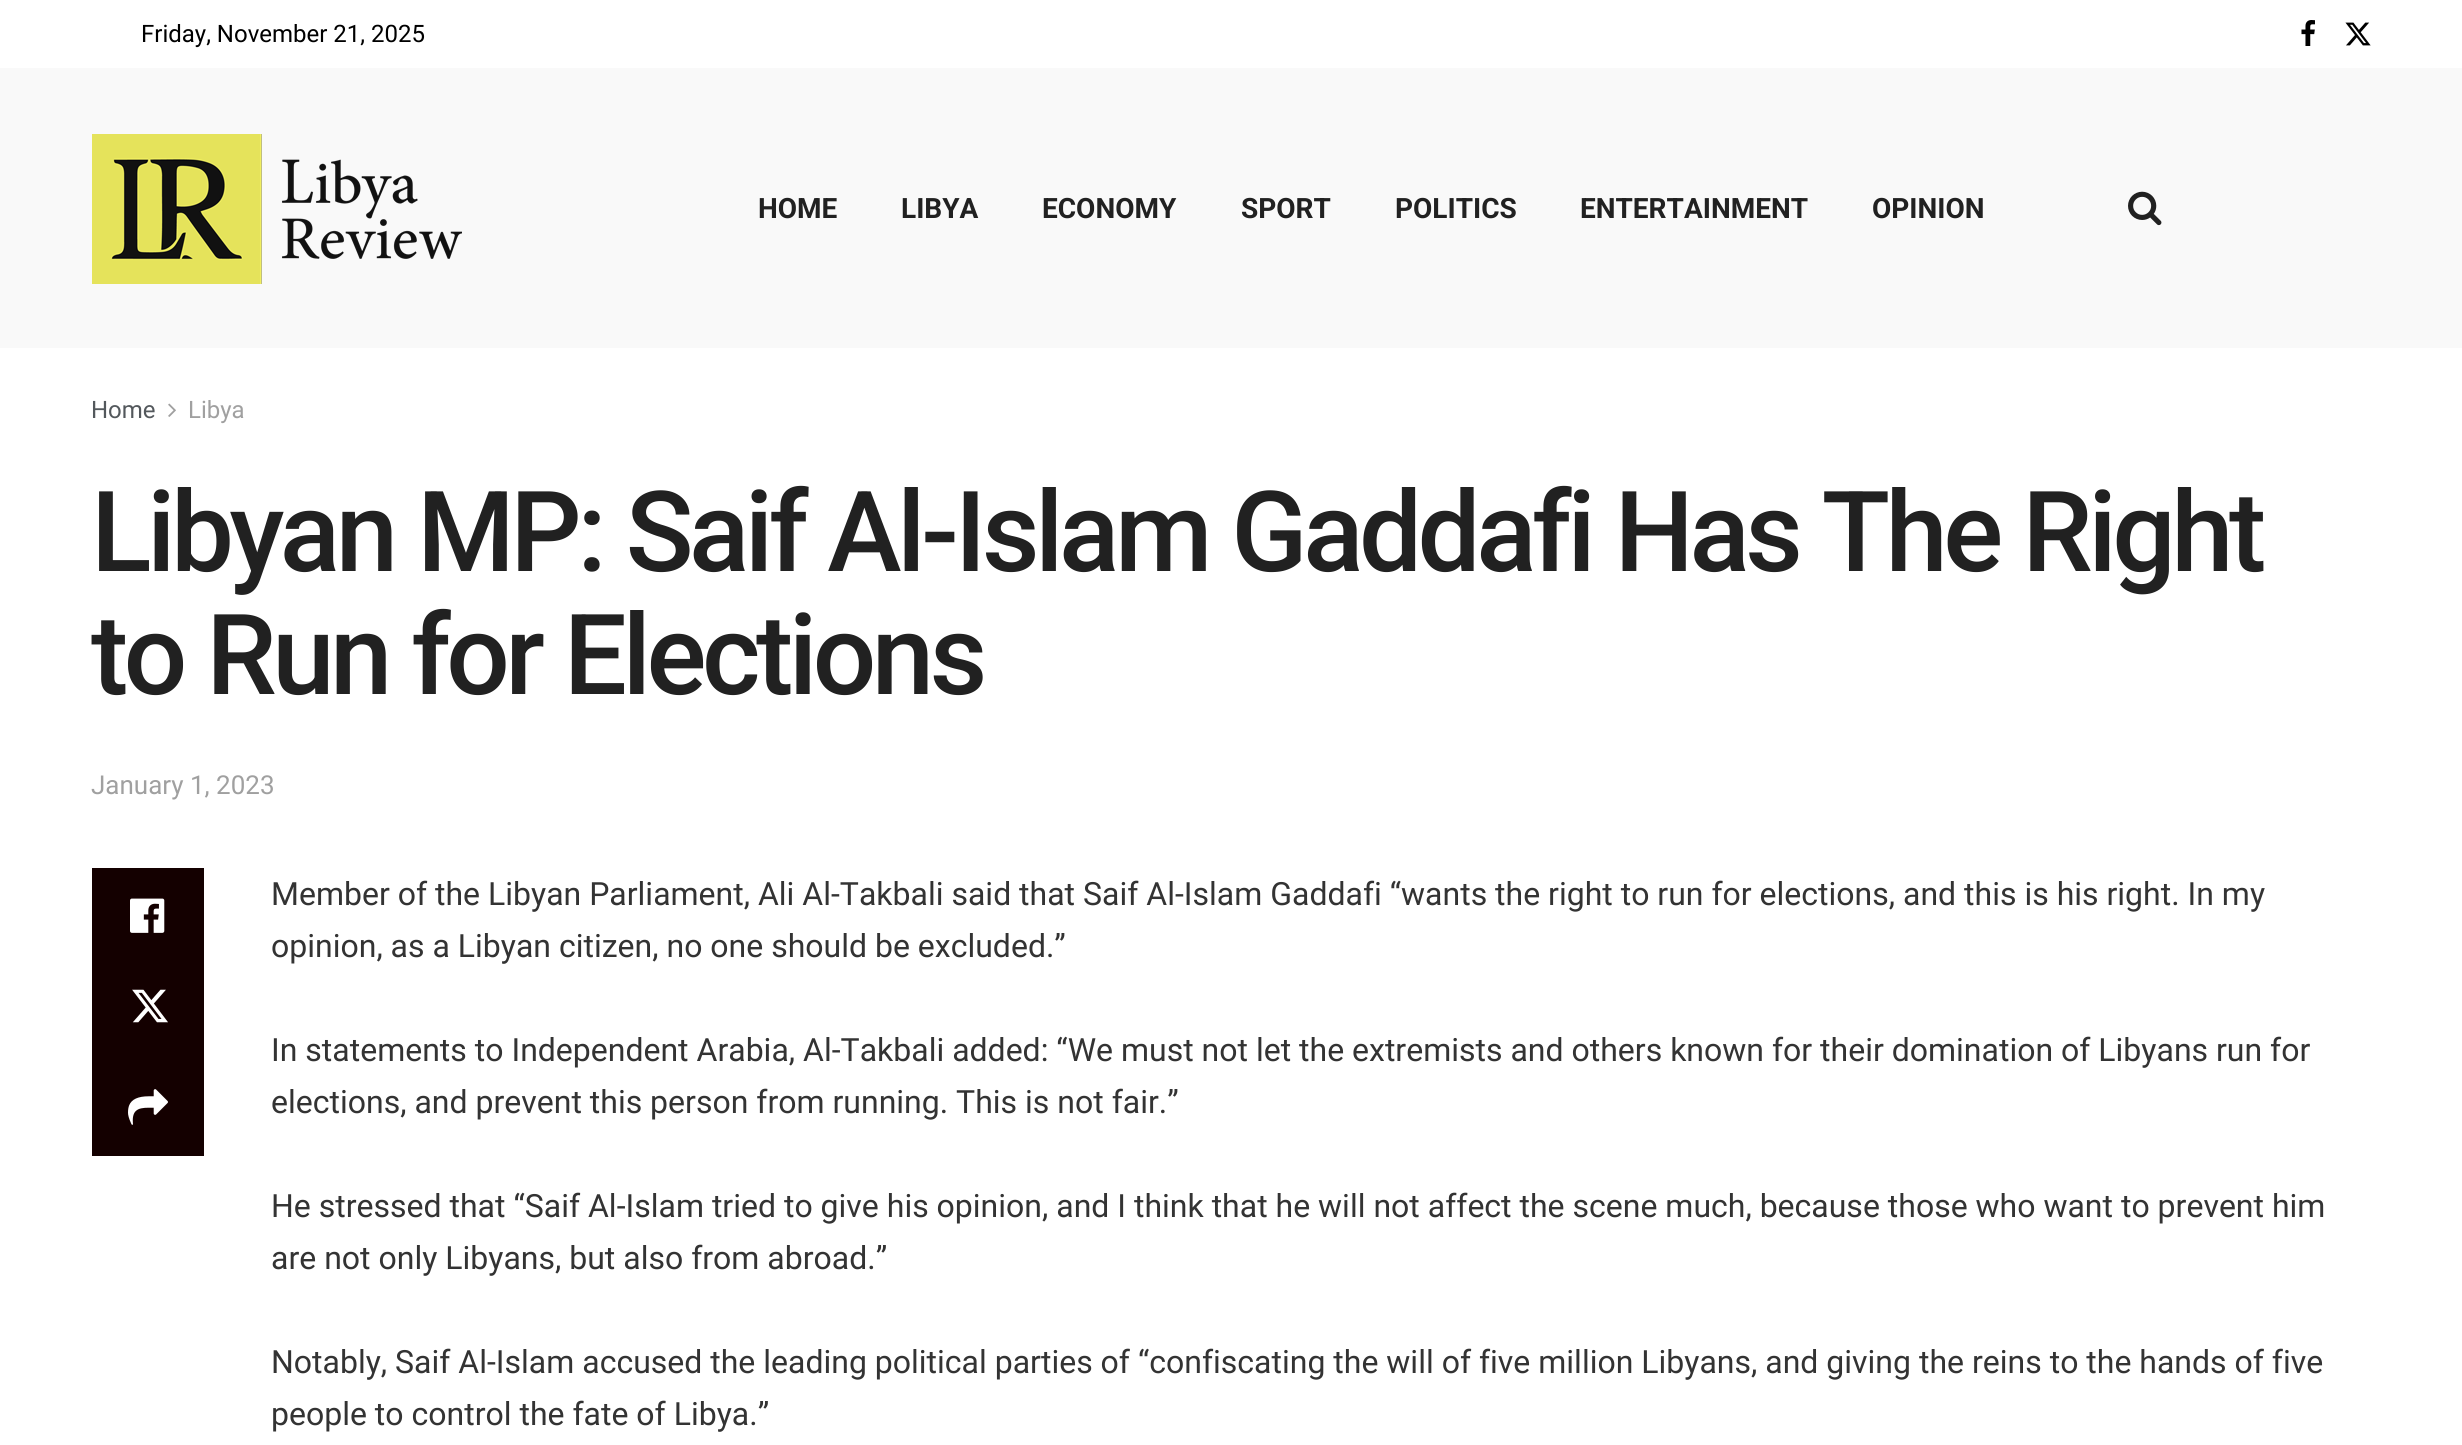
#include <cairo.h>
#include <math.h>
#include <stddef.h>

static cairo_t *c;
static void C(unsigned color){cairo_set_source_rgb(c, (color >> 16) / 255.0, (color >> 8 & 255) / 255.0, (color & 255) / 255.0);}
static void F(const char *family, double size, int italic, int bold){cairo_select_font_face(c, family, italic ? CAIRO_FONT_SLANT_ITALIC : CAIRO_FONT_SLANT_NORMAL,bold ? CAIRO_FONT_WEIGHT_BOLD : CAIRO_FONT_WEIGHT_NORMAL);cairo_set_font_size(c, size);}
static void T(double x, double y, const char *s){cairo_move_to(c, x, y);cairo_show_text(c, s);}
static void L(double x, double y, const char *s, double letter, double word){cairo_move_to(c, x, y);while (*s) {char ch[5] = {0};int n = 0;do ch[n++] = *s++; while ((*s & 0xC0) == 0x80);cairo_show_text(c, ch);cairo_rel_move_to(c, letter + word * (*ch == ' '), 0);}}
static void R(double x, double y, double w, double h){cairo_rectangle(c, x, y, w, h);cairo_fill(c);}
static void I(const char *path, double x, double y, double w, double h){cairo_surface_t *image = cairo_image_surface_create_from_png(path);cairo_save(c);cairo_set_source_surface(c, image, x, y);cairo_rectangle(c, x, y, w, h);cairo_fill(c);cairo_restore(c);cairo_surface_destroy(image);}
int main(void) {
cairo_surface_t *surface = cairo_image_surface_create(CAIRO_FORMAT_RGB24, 2462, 1445);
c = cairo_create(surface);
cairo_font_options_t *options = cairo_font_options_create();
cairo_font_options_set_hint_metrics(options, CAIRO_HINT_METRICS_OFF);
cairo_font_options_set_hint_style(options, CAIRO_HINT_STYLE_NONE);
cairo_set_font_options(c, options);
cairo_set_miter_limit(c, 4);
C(0xffffff);
cairo_paint(c);
F("Roboto",24,0,0);
C(0x000000);
T(141,42,"Friday, November 21, 2025");
I("1.png",2301,20,14,26);
I("2.png",2345,22,26,24);
C(0xf9f9f9);
R(0,68,2462,280);
I("3.png",92,134,370,150);
F("Roboto",28,0,1);
C(0x212121);
T(758,218,"HOME");
T(901,218,"LIBYA");
T(1042,218,"ECONOMY");
T(1241,218,"SPORT");
T(1395,218,"POLITICS");
T(1580,218,"ENTERTAINMENT");
T(1872,218,"OPINION");
I("4.png",2128,191,34,35);
F("Roboto",24,0,0);
C(0x53585c);
T(91,418,"Home");
I("5.png",168,403,8,14);
C(0xa0a0a0);
T(188,418,"Libya");
F("Roboto Medium",112,0,0);
C(0x212121);
L(91,571,"Libyan MP: Saif Al-Islam Gaddafi Has The Right",-4.5,0);
L(91,694,"to Run for Elections",-4.5,0);
F("Roboto",26,0,0);
C(0xa0a0a0);
T(91,794,"January 1, 2023");
C(0x140000);
R(92,868,112,288);
I("6.png",130,898,35,35);
I("7.png",132,989,36,34);
I("8.png",128,1089,40,36);
F("Roboto",32,0,0);
C(0x333333);
T(271,905,"Member of the Libyan Parliament, Ali Al-Takbali said that Saif Al-Islam Gaddafi “wants the right to run for elections, and this is his right. In my");
T(271,957,"opinion, as a Libyan citizen, no one should be excluded.”");
T(271,1061,"In statements to Independent Arabia, Al-Takbali added: “We must not let the extremists and others known for their domination of Libyans run for");
T(271,1113,"elections, and prevent this person from running. This is not fair.”");
T(271,1217,"He stressed that “Saif Al-Islam tried to give his opinion, and I think that he will not affect the scene much, because those who want to prevent him");
T(271,1269,"are not only Libyans, but also from abroad.”");
T(271,1373,"Notably, Saif Al-Islam accused the leading political parties of “confiscating the will of five million Libyans, and giving the reins to the hands of five");
T(271,1425,"people to control the fate of Libya.”");
cairo_surface_write_to_png(surface, "o.png");
cairo_font_options_destroy(options);
cairo_destroy(c);
cairo_surface_destroy(surface);
return 0;
}
